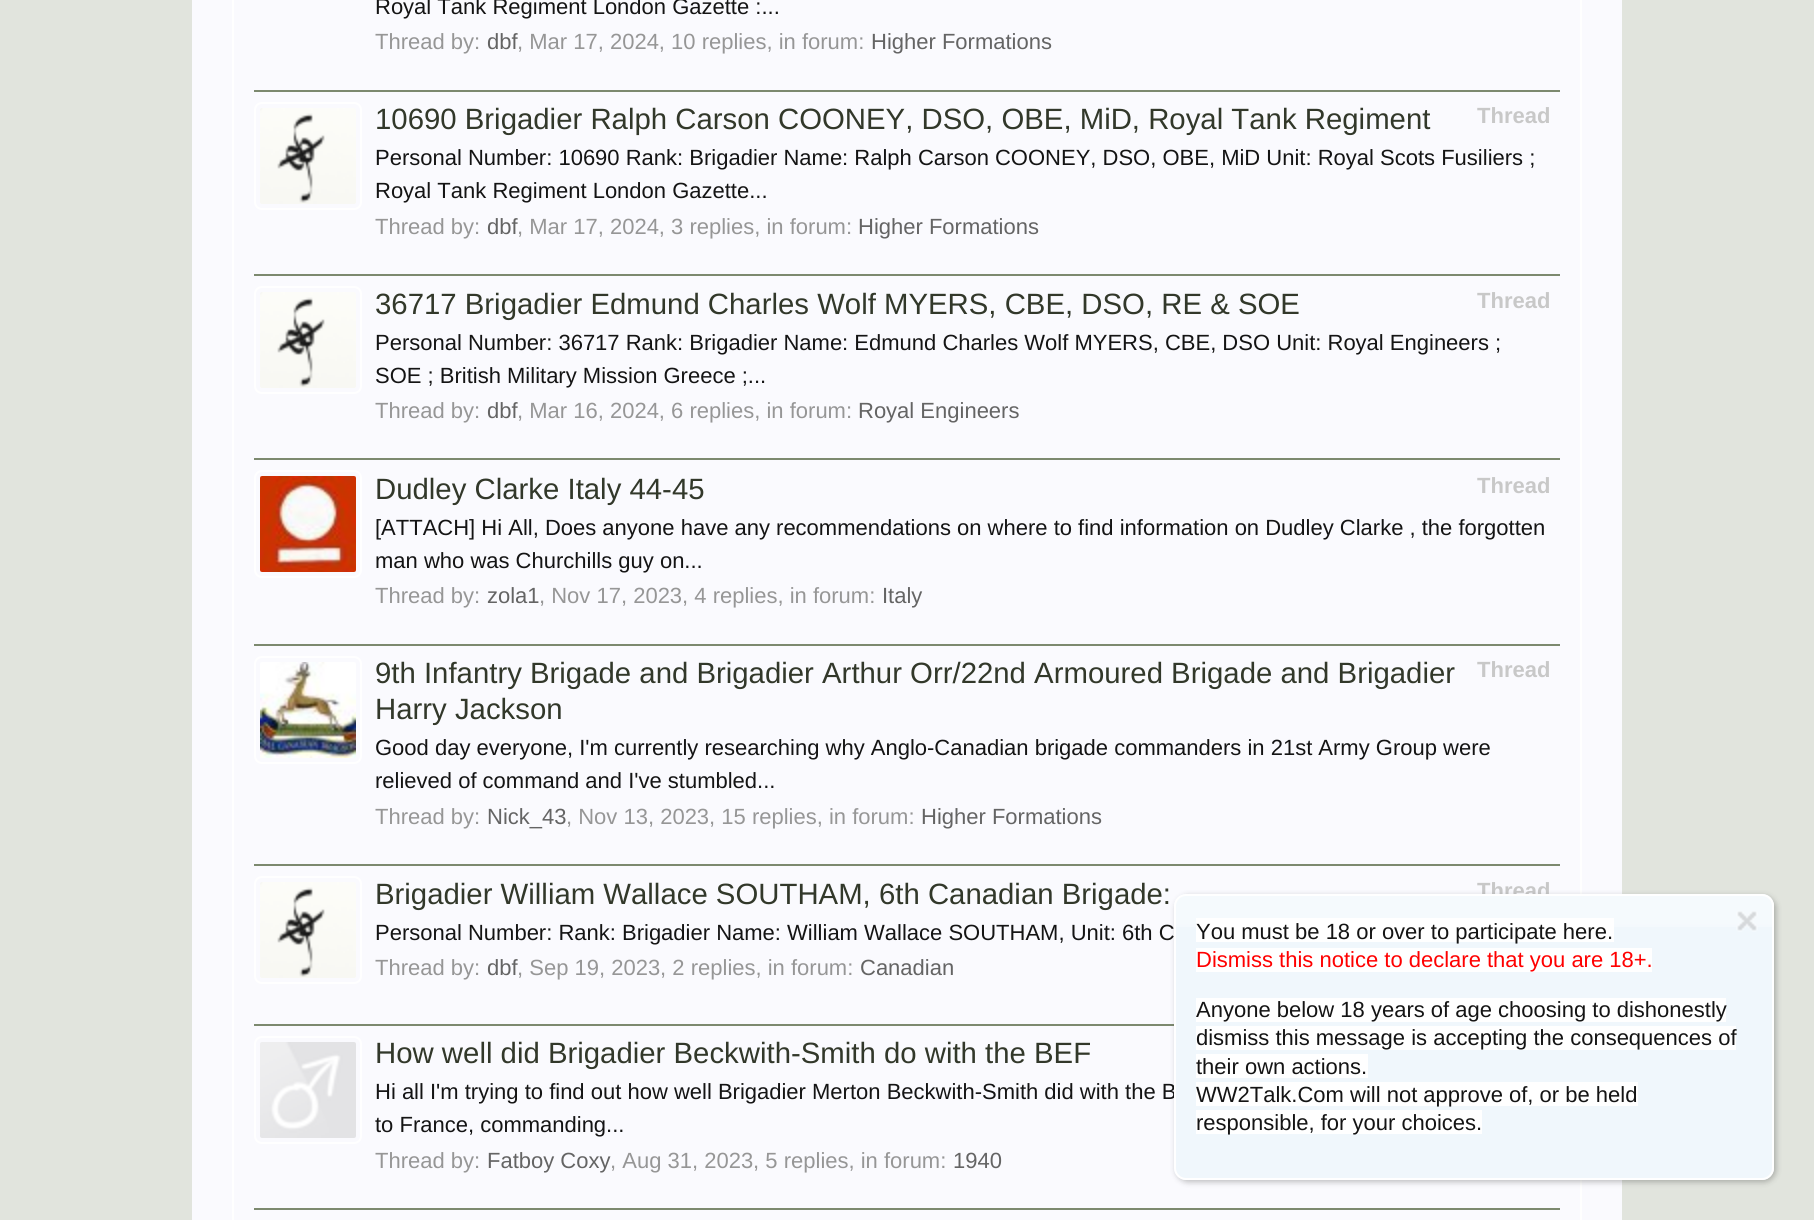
#include <cairo.h>
#include <math.h>
#include <stddef.h>

static cairo_t *c;
static void C(unsigned color){cairo_set_source_rgb(c, (color >> 16) / 255.0, (color >> 8 & 255) / 255.0, (color & 255) / 255.0);}
static void F(const char *family, double size, int italic, int bold){cairo_select_font_face(c, family, italic ? CAIRO_FONT_SLANT_ITALIC : CAIRO_FONT_SLANT_NORMAL,bold ? CAIRO_FONT_WEIGHT_BOLD : CAIRO_FONT_WEIGHT_NORMAL);cairo_set_font_size(c, size);}
static void T(double x, double y, const char *s){cairo_move_to(c, x, y);cairo_show_text(c, s);}
static void R(double x, double y, double w, double h){cairo_rectangle(c, x, y, w, h);cairo_fill(c);}
static void Q(double x, double y, double w, double h, double r){cairo_new_sub_path(c);cairo_arc(c, x + w - r, y + h - r, r, 0, M_PI / 2);cairo_arc(c, x + r, y + h - r, r, M_PI / 2, M_PI);cairo_arc(c, x + r, y + r, r, M_PI, 1.5 * M_PI);cairo_arc(c, x + w - r, y + r, r, 1.5 * M_PI, 2 * M_PI);cairo_close_path(c);}
static void S(double x, double y, double w, double h, double r, double blur, double alpha){cairo_push_group_with_content(c, CAIRO_CONTENT_ALPHA);cairo_set_operator(c, CAIRO_OPERATOR_SOURCE);for (int i = 15; i >= -15 && fmin(w, h) + blur * i / 3 > 0; i -= 2) {double e = blur * i / 6;cairo_set_source_rgba(c, 0, 0, 0, alpha * erfc((i - 1) / 8.5) / 2);Q(x - e, y - e, w + 2 * e, h + 2 * e, fmax(0, fmin(r + e + blur * .6, fmin(w, h) / 2 + e)));cairo_fill(c);}cairo_pattern_t *soft = cairo_pop_group(c);cairo_mask(c, soft);cairo_pattern_destroy(soft);}
static void I(const char *path, double x, double y, double w, double h){cairo_surface_t *image = cairo_image_surface_create_from_png(path);cairo_save(c);cairo_set_source_surface(c, image, x, y);cairo_rectangle(c, x, y, w, h);cairo_fill(c);cairo_restore(c);cairo_surface_destroy(image);}
int main(void) {
cairo_surface_t *surface = cairo_image_surface_create(CAIRO_FORMAT_RGB24, 1814, 1220);
c = cairo_create(surface);
cairo_font_options_t *options = cairo_font_options_create();
cairo_font_options_set_hint_metrics(options, CAIRO_HINT_METRICS_OFF);
cairo_font_options_set_hint_style(options, CAIRO_HINT_STYLE_NONE);
cairo_set_font_options(c, options);
cairo_set_miter_limit(c, 4);
C(0xe1e4dd);
cairo_paint(c);
C(0xfafafe);
R(192,0,1430,1220);
cairo_rectangle(c,233,-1,1348,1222);
C(0xffffff);
cairo_stroke(c);
C(0x7c896f);
R(254,90,1306,2);
F("Liberation Sans",22,0,0);
C(0x141414);
T(375,14,"Royal Tank Regiment London Gazette :...");
C(0x969696);
T(375,49,"Thread by:");
C(0x646464);
T(487,49,"dbf");
C(0x969696);
T(517,49,", Mar 17, 2024, 10 replies, in forum:");
C(0x646464);
T(871,49,"Higher Formations");
C(0x7c896f);
R(254,274,1306,2);
Q(255,103,106,106,7);
C(0xffffff);
cairo_stroke(c);
I("1.png",260,108,96,96);
F("Liberation Sans",29.35,0,0);
C(0x32382a);
T(375,129,"10690 Brigadier Ralph Carson COONEY, DSO, OBE, MiD, Royal Tank Regiment");
F("Liberation Sans",22,0,1);
C(0xc8c8c8);
T(1477,123,"Thread");
F("Liberation Sans",22,0,0);
C(0x141414);
T(375,165,"Personal Number: 10690 Rank: Brigadier Name: Ralph Carson COONEY, DSO, OBE, MiD Unit: Royal Scots Fusiliers ;");
T(375,198,"Royal Tank Regiment London Gazette...");
C(0x969696);
T(375,234,"Thread by:");
C(0x646464);
T(487,234,"dbf");
C(0x969696);
T(517,234,", Mar 17, 2024, 3 replies, in forum:");
C(0x646464);
T(858,234,"Higher Formations");
C(0x7c896f);
R(254,458,1306,2);
Q(255,287,106,106,7);
C(0xffffff);
cairo_stroke(c);
I("1.png",260,292,96,96);
F("Liberation Sans",29.35,0,0);
C(0x32382a);
T(375,314,"36717 Brigadier Edmund Charles Wolf MYERS, CBE, DSO, RE & SOE");
F("Liberation Sans",22,0,1);
C(0xc8c8c8);
T(1477,308,"Thread");
F("Liberation Sans",22,0,0);
C(0x141414);
T(375,350,"Personal Number: 36717 Rank: Brigadier Name: Edmund Charles Wolf MYERS, CBE, DSO Unit: Royal Engineers ;");
T(375,383,"SOE ; British Military Mission Greece ;...");
C(0x969696);
T(375,418,"Thread by:");
C(0x646464);
T(487,418,"dbf");
C(0x969696);
T(517,418,", Mar 16, 2024, 6 replies, in forum:");
C(0x646464);
T(858,418,"Royal Engineers");
C(0x7c896f);
R(254,644,1306,2);
Q(255,471,106,106,7);
C(0xffffff);
cairo_stroke(c);
I("2.png",260,476,96,96);
F("Liberation Sans",29.35,0,0);
C(0x32382a);
T(375,499,"Dudley Clarke Italy 44-45");
F("Liberation Sans",22,0,1);
C(0xc8c8c8);
T(1477,493,"Thread");
F("Liberation Sans",22,0,0);
C(0x141414);
T(375,535,"[ATTACH] Hi All, Does anyone have any recommendations on where to find information on Dudley Clarke , the forgotten");
T(375,568,"man who was Churchills guy on...");
C(0x969696);
T(375,603,"Thread by:");
C(0x646464);
T(487,603,"zola1");
C(0x969696);
T(539,603,", Nov 17, 2023, 4 replies, in forum:");
C(0x646464);
T(882,603,"Italy");
C(0x7c896f);
R(254,864,1306,2);
Q(255,657,106,106,7);
C(0xffffff);
cairo_stroke(c);
I("3.png",260,662,96,96);
F("Liberation Sans",29.35,0,0);
C(0x32382a);
T(375,683,"9th Infantry Brigade and Brigadier Arthur Orr/22nd Armoured Brigade and Brigadier");
T(375,719,"Harry Jackson");
F("Liberation Sans",22,0,1);
C(0xc8c8c8);
T(1477,677,"Thread");
F("Liberation Sans",22,0,0);
C(0x141414);
T(375,755,"Good day everyone, I'm currently researching why Anglo-Canadian brigade commanders in 21st Army Group were");
T(375,788,"relieved of command and I've stumbled...");
C(0x969696);
T(375,824,"Thread by:");
C(0x646464);
T(487,824,"Nick_43");
C(0x969696);
T(566,824,", Nov 13, 2023, 15 replies, in forum:");
C(0x646464);
T(921,824,"Higher Formations");
C(0x7c896f);
R(254,1024,920,2);
Q(255,877,106,106,7);
C(0xffffff);
cairo_stroke(c);
I("1.png",260,882,96,96);
F("Liberation Sans",29.35,0,0);
C(0x32382a);
T(375,904,"Brigadier William Wallace SOUTHAM, 6th Canadian Brigade:");
F("Liberation Sans",22,0,1);
C(0xc8c8c8);
T(1477,898,"Thread");
F("Liberation Sans",22,0,0);
C(0x141414);
T(375,940,"Personal Number: Rank: Brigadier Name: William Wallace SOUTHAM, Unit: 6th C");
C(0x969696);
T(375,975,"Thread by:");
C(0x646464);
T(487,975,"dbf");
C(0x969696);
T(517,975,", Sep 19, 2023, 2 replies, in forum:");
C(0x646464);
T(860,975,"Canadian");
C(0x7c896f);
R(254,1208,1306,2);
Q(255,1037,106,106,7);
C(0xffffff);
cairo_stroke(c);
I("4.png",260,1042,96,96);
F("Liberation Sans",29.35,0,0);
C(0x32382a);
T(375,1063,"How well did Brigadier Beckwith-Smith do with the BEF");
F("Liberation Sans",22,0,0);
C(0x141414);
T(375,1099,"Hi all I'm trying to find out how well Brigadier Merton Beckwith-Smith did with the B");
T(375,1132,"to France, commanding...");
C(0x969696);
T(375,1168,"Thread by:");
C(0x646464);
T(487,1168,"Fatboy Coxy");
C(0x969696);
T(610,1168,", Aug 31, 2023, 5 replies, in forum:");
C(0x646464);
T(953,1168,"1940");
C(0x000000);
S(1176,896,600,286,12,3,.25);
C(0xf0f7fc);
Q(1174,894,600,286,12);
cairo_fill(c);
I("5.png",1174,896,600,31);
Q(1175,895,598,284,11);
C(0xffffff);
cairo_stroke(c);
R(1196,918,418,24);
C(0x141414);
T(1196,939,"You must be 18 or over to participate here.");
C(0xffffff);
R(1196,948,456,24);
C(0xff0000);
T(1196,967,"Dismiss this notice to declare that you are 18+.");
C(0xffffff);
R(1196,998,530,24);
C(0x141414);
T(1196,1017,"Anyone below 18 years of age choosing to dishonestly");
C(0xffffff);
R(1196,1026,540,24);
C(0x141414);
T(1196,1045,"dismiss this message is accepting the consequences of");
C(0xffffff);
R(1196,1054,172,24);
C(0x141414);
T(1196,1074,"their own actions.");
C(0xffffff);
R(1196,1082,442,24);
C(0x141414);
T(1196,1102,"WW2Talk.Com will not approve of, or be held");
C(0xffffff);
R(1196,1110,286,24);
C(0x141414);
T(1196,1130,"responsible, for your choices.");
I("6.png",1736,911,22,21);
cairo_surface_write_to_png(surface, "o.png");
cairo_font_options_destroy(options);
cairo_destroy(c);
cairo_surface_destroy(surface);
return 0;
}
